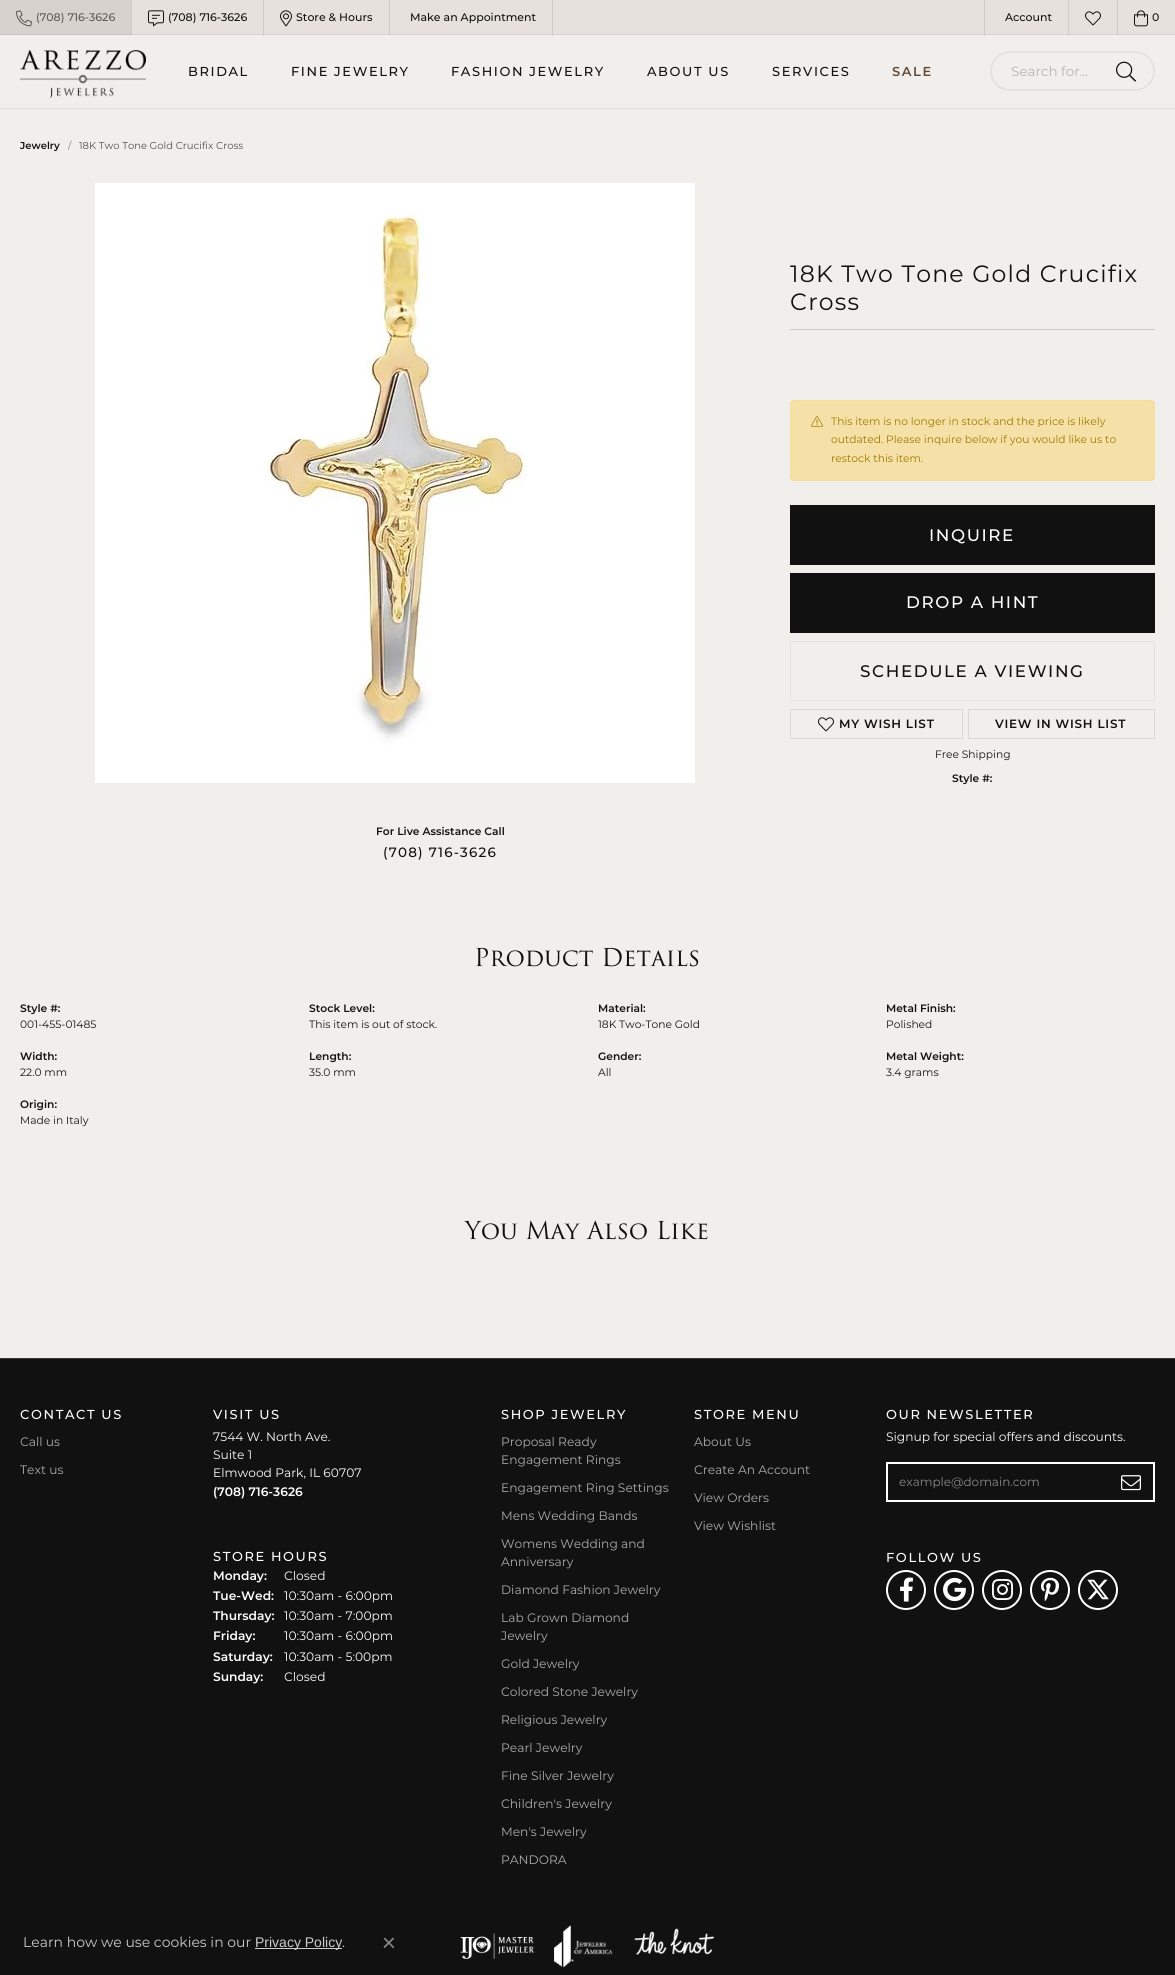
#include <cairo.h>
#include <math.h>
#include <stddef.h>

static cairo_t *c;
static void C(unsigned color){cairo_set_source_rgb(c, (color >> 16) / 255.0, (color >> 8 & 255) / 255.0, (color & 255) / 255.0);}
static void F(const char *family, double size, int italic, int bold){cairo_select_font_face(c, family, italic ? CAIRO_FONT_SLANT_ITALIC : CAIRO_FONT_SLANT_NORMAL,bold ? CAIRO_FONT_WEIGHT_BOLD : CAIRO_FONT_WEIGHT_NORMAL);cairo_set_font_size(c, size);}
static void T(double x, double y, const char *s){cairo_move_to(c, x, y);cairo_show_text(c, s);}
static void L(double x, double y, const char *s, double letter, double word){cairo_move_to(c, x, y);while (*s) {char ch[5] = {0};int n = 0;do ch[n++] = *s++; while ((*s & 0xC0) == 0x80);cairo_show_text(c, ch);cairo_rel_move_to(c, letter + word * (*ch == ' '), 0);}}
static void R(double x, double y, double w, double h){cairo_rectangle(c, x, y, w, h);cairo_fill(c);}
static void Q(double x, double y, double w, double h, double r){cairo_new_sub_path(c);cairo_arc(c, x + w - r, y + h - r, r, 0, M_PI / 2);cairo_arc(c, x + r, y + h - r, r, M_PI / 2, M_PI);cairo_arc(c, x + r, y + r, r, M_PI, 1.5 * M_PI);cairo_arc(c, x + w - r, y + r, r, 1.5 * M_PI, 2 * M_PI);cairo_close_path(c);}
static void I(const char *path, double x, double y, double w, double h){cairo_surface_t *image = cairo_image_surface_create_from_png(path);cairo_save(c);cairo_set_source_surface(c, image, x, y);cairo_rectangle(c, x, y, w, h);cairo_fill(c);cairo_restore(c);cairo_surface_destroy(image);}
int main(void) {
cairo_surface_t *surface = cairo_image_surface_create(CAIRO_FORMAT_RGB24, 1175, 1975);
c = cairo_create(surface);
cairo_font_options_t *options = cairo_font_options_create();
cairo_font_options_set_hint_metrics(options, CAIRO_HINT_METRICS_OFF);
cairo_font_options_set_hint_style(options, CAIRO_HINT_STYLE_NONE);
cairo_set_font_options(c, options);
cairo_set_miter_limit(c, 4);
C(0x111111);
cairo_paint(c);
C(0xe6e1dc);
R(132,0,1043,35);
C(0xcfcbc6);
R(131,0,1,35);
C(0xd7d2ce);
R(0,0,131,35);
I("1.png",16,10,16,17);
F("Montserrat Medium",11,0,0);
C(0x5c5a58);
T(36,21,"(708) 716-3626");
C(0xcfcbc6);
R(263,0,1,35);
I("2.png",148,10,16,17);
C(0x111111);
T(168,21,"(708) 716-3626");
C(0xcfcbc6);
R(389,0,1,35);
I("3.png",280,10,12,17);
C(0x111111);
T(296,21,"Store & Hours");
C(0xcfcbc6);
R(552,0,1,35);
C(0x111111);
T(410,21,"Make an Appointment");
C(0xcfcbc6);
R(984,0,1,35);
C(0x111111);
T(1005,21,"Account");
C(0xcfcbc6);
R(1068,0,1,35);
I("4.png",1085,11,16,15);
R(1117,0,1,35);
I("5.png",1134,10,14,17);
C(0x111111);
T(1152,21,"0");
C(0xf1efec);
R(0,108,1175,1250);
cairo_rectangle(c,-.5,34.5,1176,74);
cairo_set_source_rgba(c,0,0,0,0.07);
cairo_set_line_width(c,1);
cairo_stroke(c);
C(0xf1efec);
R(0,35,1175,73);
I("6.png",20,50,126,48);
F("Montserrat Medium",13,0,0);
C(0x111111);
L(188,76,"BRIDAL",1.6,0);
L(291,76,"FINE JEWELRY",1.6,0);
L(451,76,"FASHION JEWELRY",1.6,0);
L(647,76,"ABOUT US",1.6,0);
L(772,76,"SERVICES",1.6,0);
F("Montserrat SemiBold",13,0,0);
C(0x634b35);
L(892,76,"SALE",1.6,0);
Q(991,52,163,38,19);
C(0xe6e1dd);
cairo_set_line_width(c,2);
cairo_stroke(c);
F("Montserrat",13.5,0,0);
C(0xb6b4b3);
T(1011,76,"Search for...");
I("7.png",1116,61,20,21);
F("Montserrat SemiBold",10,0,0);
C(0x111111);
T(20,149,"Jewelry");
F("Montserrat",10,0,0);
C(0x817e7d);
T(68,149,"/");
C(0x515151);
T(79,149,"18K Two Tone Gold Crucifix Cross");
F("Montserrat",23.6,0,0);
C(0x111111);
L(790,282,"18K Two Tone Gold Crucifix",1.2,0);
L(790,310,"Cross",1.2,0);
C(0xccc9c7);
R(790,329,365,1);
C(0xf5e1a7);
Q(790,400,365,81,4);
cairo_fill(c);
Q(790.5,400.5,364,80,3.5);
cairo_set_source_rgba(c,1,0.757,0.027,0.1);
cairo_set_line_width(c,1);
cairo_stroke(c);
I("8.png",811,416,12,11);
F("Montserrat",10.7,0,0);
C(0xa07800);
T(831,425,"This item is no longer in stock and the price is likely");
T(831,443,"outdated. Please inquire below if you would like us to");
T(831,462,"restock this item.");
C(0x111111);
R(790,505,365,60);
F("Montserrat Medium",16.75,0,0);
C(0xffffff);
L(929,541,"INQUIRE",1.6,0);
C(0x111111);
R(790,573,365,60);
C(0xffffff);
L(906,608,"DROP A HINT",1.6,0);
cairo_rectangle(c,790.5,641.5,364,59);
C(0xe6e1dd);
cairo_stroke(c);
C(0x111111);
L(860,677,"SCHEDULE A VIEWING",1.6,0);
cairo_rectangle(c,790.5,709.5,172,29);
C(0xdad9d9);
cairo_stroke(c);
I("9.png",818,717,16,15);
F("Montserrat SemiBold",12,0,0);
C(0x111111);
L(839,728,"MY WISH LIST",.75,0);
cairo_rectangle(c,968.5,709.5,186,29);
C(0xdad9d9);
cairo_stroke(c);
C(0x111111);
L(995,728,"VIEW IN WISH LIST",.75,0);
F("Montserrat",10.7,0,0);
T(935,758,"Free Shipping");
F("Montserrat SemiBold",10.7,0,0);
T(952,782,"Style #:");
I("10.png",95,183,600,600);
T(376,835,"For Live Assistance Call");
F("Montserrat Medium",13.5,0,0);
L(383,857,"(708) 716-3626",1.2,0);
F("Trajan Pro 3",24,0,0);
T(474,966,"Product Details");
F("Montserrat SemiBold",10.7,0,0);
T(20,1012,"Style #:");
F("Montserrat",10.7,0,0);
T(20,1028,"001-455-01485");
F("Montserrat SemiBold",10.7,0,0);
T(20,1060,"Width:");
F("Montserrat",10.7,0,0);
T(20,1076,"22.0 mm");
F("Montserrat SemiBold",10.7,0,0);
T(20,1108,"Origin:");
F("Montserrat",10.7,0,0);
T(20,1124,"Made in Italy");
F("Montserrat SemiBold",10.7,0,0);
T(309,1012,"Stock Level:");
F("Montserrat",10.7,0,0);
T(309,1028,"This item is out of stock.");
F("Montserrat SemiBold",10.7,0,0);
T(309,1060,"Length:");
F("Montserrat",10.7,0,0);
T(309,1076,"35.0 mm");
F("Montserrat SemiBold",10.7,0,0);
T(598,1012,"Material:");
F("Montserrat",10.7,0,0);
T(598,1028,"18K Two-Tone Gold");
F("Montserrat SemiBold",10.7,0,0);
T(598,1060,"Gender:");
F("Montserrat",10.7,0,0);
T(598,1076,"All");
F("Montserrat SemiBold",10.7,0,0);
T(886,1012,"Metal Finish:");
F("Montserrat",10.7,0,0);
T(886,1028,"Polished");
F("Montserrat SemiBold",10.7,0,0);
T(886,1060,"Metal Weight:");
F("Montserrat",10.7,0,0);
T(886,1076,"3.4 grams");
F("Trajan Pro 3",24,0,0);
T(465,1239,"You May Also Like");
C(0x373737);
R(0,1358,1175,1);
F("Montserrat Medium",13,0,0);
C(0xffffff);
L(20,1419,"CONTACT US",1.6,0);
F("Montserrat",12.25,0,0);
C(0xacacac);
T(20,1446,"Call us");
T(20,1474,"Text us");
F("Montserrat Medium",13,0,0);
C(0xffffff);
L(213,1419,"VISIT US",1.6,0);
F("Montserrat",12.25,0,0);
T(213,1441,"7544 W. North Ave.");
T(213,1459,"Suite 1");
T(213,1477,"Elmwood Park, IL 60707");
F("Montserrat SemiBold",12.25,0,0);
T(213,1496,"(708) 716-3626");
F("Montserrat Medium",13,0,0);
L(213,1561,"STORE HOURS",1.6,0);
F("Montserrat SemiBold",12.25,0,0);
T(213,1580,"Monday:");
F("Montserrat",12.25,0,0);
T(284,1580,"Closed");
F("Montserrat SemiBold",12.25,0,0);
T(213,1600,"Tue-Wed:");
F("Montserrat",12.25,0,0);
T(284,1600,"10:30am - 6:00pm");
F("Montserrat SemiBold",12.25,0,0);
T(213,1620,"Thursday:");
F("Montserrat",12.25,0,0);
T(284,1620,"10:30am - 7:00pm");
F("Montserrat SemiBold",12.25,0,0);
T(213,1640,"Friday:");
F("Montserrat",12.25,0,0);
T(284,1640,"10:30am - 6:00pm");
F("Montserrat SemiBold",12.25,0,0);
T(213,1661,"Saturday:");
F("Montserrat",12.25,0,0);
T(284,1661,"10:30am - 5:00pm");
F("Montserrat SemiBold",12.25,0,0);
T(213,1681,"Sunday:");
F("Montserrat",12.25,0,0);
T(284,1681,"Closed");
F("Montserrat Medium",13,0,0);
L(501,1419,"SHOP JEWELRY",1.6,0);
F("Montserrat",12.25,0,0);
C(0xacacac);
T(501,1446,"Proposal Ready");
T(501,1464,"Engagement Rings");
T(501,1492,"Engagement Ring Settings");
T(501,1520,"Mens Wedding Bands");
T(501,1548,"Womens Wedding and");
T(501,1566,"Anniversary");
T(501,1594,"Diamond Fashion Jewelry");
T(501,1622,"Lab Grown Diamond");
T(501,1640,"Jewelry");
T(501,1668,"Gold Jewelry");
T(501,1696,"Colored Stone Jewelry");
T(501,1724,"Religious Jewelry");
T(501,1752,"Pearl Jewelry");
T(501,1780,"Fine Silver Jewelry");
T(501,1808,"Children's Jewelry");
T(501,1836,"Men's Jewelry");
T(501,1864,"PANDORA");
F("Montserrat Medium",13,0,0);
C(0xffffff);
L(694,1419,"STORE MENU",1.6,0);
F("Montserrat",12.25,0,0);
C(0xacacac);
T(694,1446,"About Us");
T(694,1474,"Create An Account");
T(694,1502,"View Orders");
T(694,1530,"View Wishlist");
F("Montserrat Medium",13,0,0);
C(0xffffff);
L(886,1419,"OUR NEWSLETTER",1.6,0);
F("Montserrat",12.25,0,0);
T(886,1441,"Signup for special offers and discounts.");
cairo_rectangle(c,887,1463,267,38);
cairo_set_line_width(c,2);
cairo_stroke(c);
F("Montserrat",12,0,0);
C(0x888888);
T(899,1486,"example@domain.com");
I("11.png",1121,1475,20,16);
F("Montserrat Medium",13,0,0);
C(0xffffff);
L(886,1562,"FOLLOW US",1.6,0);
cairo_new_path(c);
cairo_arc(c,906,1590,19,0,2 * M_PI);
cairo_stroke(c);
I("12.png",900,1577,13,25);
cairo_arc(c,954,1590,19,0,2 * M_PI);
cairo_stroke(c);
I("13.png",943,1577,23,25);
cairo_arc(c,1002,1590,19,0,2 * M_PI);
cairo_stroke(c);
I("14.png",992,1579,21,21);
cairo_arc(c,1050,1590,19,0,2 * M_PI);
cairo_stroke(c);
I("15.png",1041,1577,18,25);
cairo_arc(c,1098,1590,19,0,2 * M_PI);
cairo_stroke(c);
I("16.png",1087,1579,22,21);
I("17.png",460,1933,74,26);
I("18.png",554,1925,59,43);
I("19.png",634,1928,81,27);
F("Montserrat",14,0,0);
C(0xcccccc);
T(23,1947,"Learn how we use cookies in our");
R(255,1948,87,1);
F("Liberation Sans",14,0,0);
T(255,1947,"Privacy Policy");
F("Montserrat",14,0,0);
T(342,1947,".");
I("20.png",383,1937,12,12);
cairo_surface_write_to_png(surface, "o.png");
cairo_font_options_destroy(options);
cairo_destroy(c);
cairo_surface_destroy(surface);
return 0;
}
